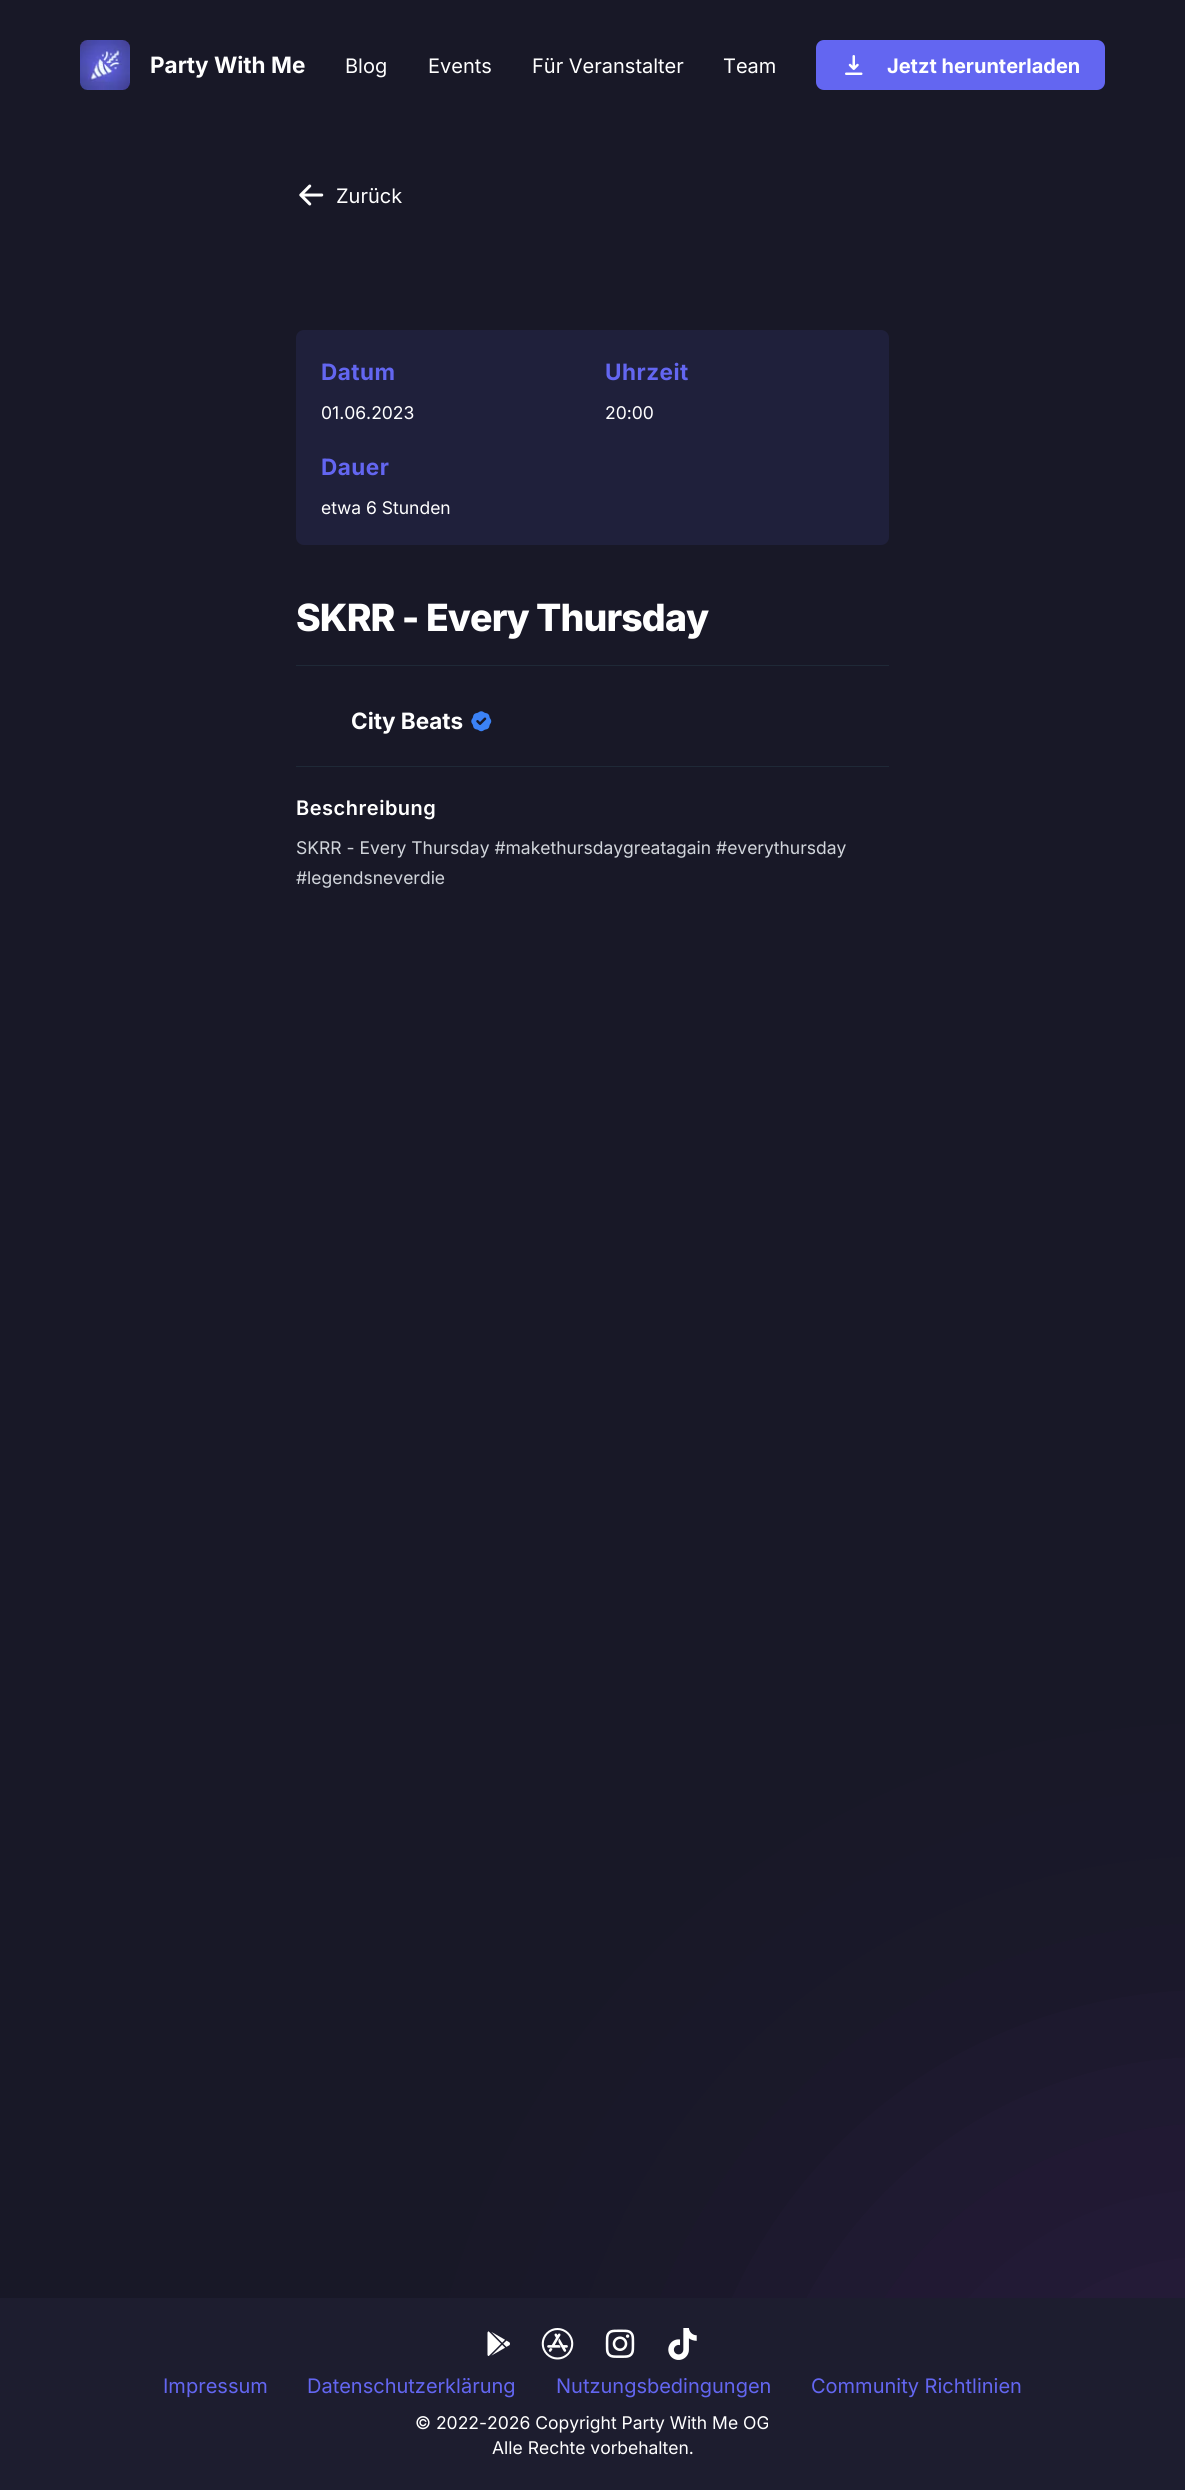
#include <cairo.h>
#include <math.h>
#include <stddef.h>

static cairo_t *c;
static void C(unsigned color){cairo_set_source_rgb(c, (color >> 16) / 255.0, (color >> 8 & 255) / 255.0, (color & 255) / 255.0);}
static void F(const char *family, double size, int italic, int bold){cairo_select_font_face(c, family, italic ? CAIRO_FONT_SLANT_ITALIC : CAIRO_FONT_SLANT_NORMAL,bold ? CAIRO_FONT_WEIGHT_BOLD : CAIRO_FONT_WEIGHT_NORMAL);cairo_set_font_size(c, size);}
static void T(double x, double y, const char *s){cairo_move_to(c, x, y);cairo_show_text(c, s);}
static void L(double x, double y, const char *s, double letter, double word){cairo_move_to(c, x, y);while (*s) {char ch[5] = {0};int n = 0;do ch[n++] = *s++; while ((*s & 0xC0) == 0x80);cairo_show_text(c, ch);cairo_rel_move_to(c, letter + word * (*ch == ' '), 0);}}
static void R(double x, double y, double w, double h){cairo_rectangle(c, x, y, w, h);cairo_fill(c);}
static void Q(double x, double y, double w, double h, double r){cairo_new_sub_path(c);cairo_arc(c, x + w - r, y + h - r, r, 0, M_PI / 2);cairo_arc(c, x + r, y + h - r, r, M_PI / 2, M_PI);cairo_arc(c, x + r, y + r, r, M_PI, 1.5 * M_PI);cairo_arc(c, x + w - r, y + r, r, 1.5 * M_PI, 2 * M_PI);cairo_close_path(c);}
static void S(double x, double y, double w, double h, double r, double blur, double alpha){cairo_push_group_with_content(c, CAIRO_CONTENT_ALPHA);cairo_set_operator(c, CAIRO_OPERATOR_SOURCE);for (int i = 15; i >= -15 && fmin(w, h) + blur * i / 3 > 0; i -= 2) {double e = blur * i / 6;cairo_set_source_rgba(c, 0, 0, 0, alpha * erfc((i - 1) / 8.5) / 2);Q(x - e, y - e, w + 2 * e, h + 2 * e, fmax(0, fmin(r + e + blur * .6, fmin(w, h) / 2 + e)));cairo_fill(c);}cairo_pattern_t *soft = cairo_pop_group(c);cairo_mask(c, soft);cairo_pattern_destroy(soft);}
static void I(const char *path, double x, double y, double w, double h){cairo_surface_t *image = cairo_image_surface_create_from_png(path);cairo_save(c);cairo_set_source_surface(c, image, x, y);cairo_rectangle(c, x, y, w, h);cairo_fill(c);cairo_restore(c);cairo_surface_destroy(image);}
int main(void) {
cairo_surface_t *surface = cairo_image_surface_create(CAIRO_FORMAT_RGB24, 1185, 2490);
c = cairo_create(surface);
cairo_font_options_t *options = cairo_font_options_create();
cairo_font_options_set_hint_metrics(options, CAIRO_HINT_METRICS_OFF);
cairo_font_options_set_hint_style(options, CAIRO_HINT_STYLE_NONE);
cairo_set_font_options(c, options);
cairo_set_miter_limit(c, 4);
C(0x181827);
cairo_paint(c);
I("1.png",80,40,50,50);
F("Inter",22.5,0,1);
C(0xffffff);
T(150,73,"Party With Me");
F("Inter",20,0,0);
T(345,73,"Blog");
T(428,73,"Events");
T(532,73,"Für Veranstalter");
T(723,73,"Team");
C(0x6366f1);
Q(816,40,289,50,8);
cairo_fill(c);
I("2.png",845,55,18,20);
F("Inter",20,0,1);
C(0xffffff);
T(887,73,"Jetzt herunterladen");
I("3.png",299,184,25,22);
F("Inter",20,0,0);
T(336,203,"Zurück");
C(0x1f203b);
Q(296,330,593,215,8);
cairo_fill(c);
F("Inter",22.5,0,1);
C(0x6366f1);
L(321,380,"Datum",.5,0);
F("Inter",17.5,0,0);
C(0xffffff);
T(321,419,"01.06.2023");
F("Inter",22.5,0,1);
C(0x6366f1);
L(605,380,"Uhrzeit",.5,0);
F("Inter",17.5,0,0);
C(0xffffff);
T(605,419,"20:00");
F("Inter",22.5,0,1);
C(0x6366f1);
L(321,475,"Dauer",.5,0);
F("Inter",17.5,0,0);
C(0xffffff);
T(321,514,"etwa 6 Stunden");
F("Inter ExtraBold",37.5,0,0);
L(296,631,"SKRR - Every Thursday",-.9,0);
C(0x1f2937);
R(296,665,593,1);
F("Inter",22.5,0,1);
C(0xffffff);
T(351,729,"City Beats");
I("4.png",471,711,21,21);
C(0x1f2937);
R(296,766,593,1);
F("Inter SemiBold",20,0,0);
C(0xffffff);
L(296,815,"Beschreibung",.5,0);
F("Inter",17.5,0,0);
C(0xd1d5db);
T(296,854,"SKRR - Every Thursday #makethursdaygreatagain #everythursday");
T(296,884,"#legendsneverdie");
C(0x902ec7);
S(785,2090,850,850,425,200,.12);
C(0x1d1d2f);
R(0,2298,1185,192);
I("5.png",487,2331,23,25);
I("6.png",541,2328,33,32);
I("7.png",605,2329,30,29);
I("8.png",668,2328,29,32);
F("Inter",20,0,0);
C(0x6366f1);
T(163,2393,"Impressum");
T(307,2393,"Datenschutzerklärung");
T(556,2393,"Nutzungsbedingungen");
T(811,2393,"Community Richtlinien");
F("Inter",17.5,0,0);
C(0xffffff);
T(415,2429,"© 2022-2026 Copyright Party With Me OG");
T(492,2454,"Alle Rechte vorbehalten.");
cairo_surface_write_to_png(surface, "o.png");
cairo_font_options_destroy(options);
cairo_destroy(c);
cairo_surface_destroy(surface);
return 0;
}
